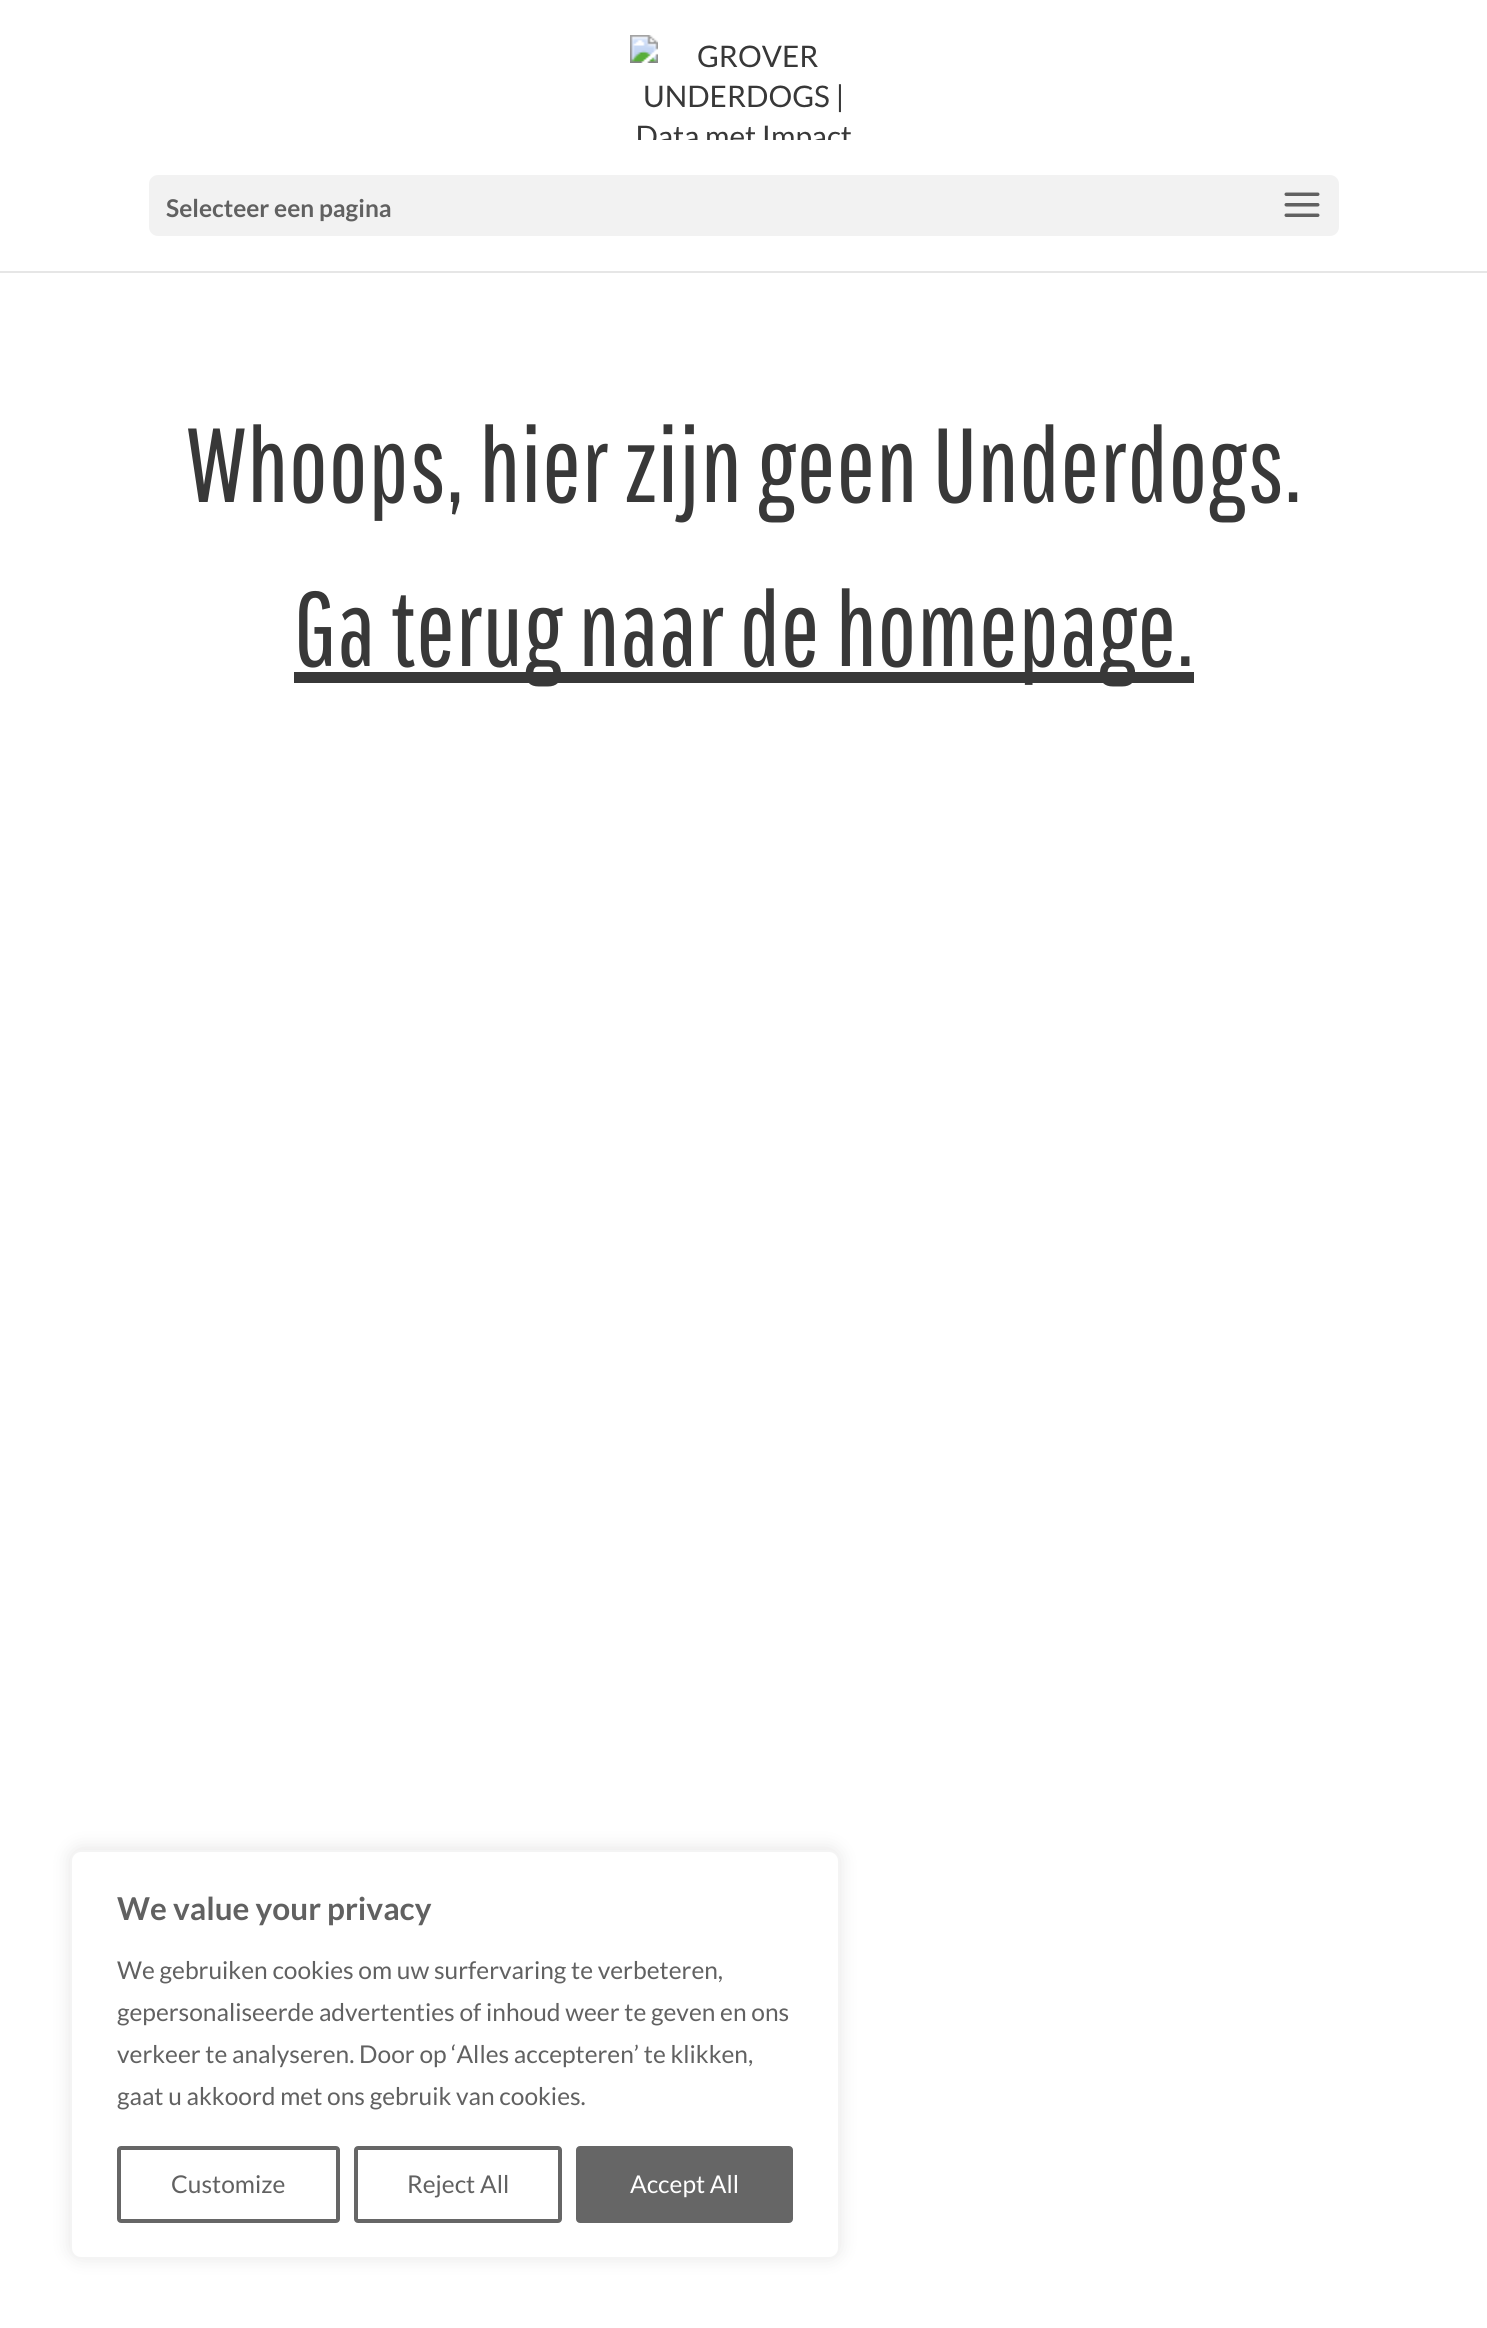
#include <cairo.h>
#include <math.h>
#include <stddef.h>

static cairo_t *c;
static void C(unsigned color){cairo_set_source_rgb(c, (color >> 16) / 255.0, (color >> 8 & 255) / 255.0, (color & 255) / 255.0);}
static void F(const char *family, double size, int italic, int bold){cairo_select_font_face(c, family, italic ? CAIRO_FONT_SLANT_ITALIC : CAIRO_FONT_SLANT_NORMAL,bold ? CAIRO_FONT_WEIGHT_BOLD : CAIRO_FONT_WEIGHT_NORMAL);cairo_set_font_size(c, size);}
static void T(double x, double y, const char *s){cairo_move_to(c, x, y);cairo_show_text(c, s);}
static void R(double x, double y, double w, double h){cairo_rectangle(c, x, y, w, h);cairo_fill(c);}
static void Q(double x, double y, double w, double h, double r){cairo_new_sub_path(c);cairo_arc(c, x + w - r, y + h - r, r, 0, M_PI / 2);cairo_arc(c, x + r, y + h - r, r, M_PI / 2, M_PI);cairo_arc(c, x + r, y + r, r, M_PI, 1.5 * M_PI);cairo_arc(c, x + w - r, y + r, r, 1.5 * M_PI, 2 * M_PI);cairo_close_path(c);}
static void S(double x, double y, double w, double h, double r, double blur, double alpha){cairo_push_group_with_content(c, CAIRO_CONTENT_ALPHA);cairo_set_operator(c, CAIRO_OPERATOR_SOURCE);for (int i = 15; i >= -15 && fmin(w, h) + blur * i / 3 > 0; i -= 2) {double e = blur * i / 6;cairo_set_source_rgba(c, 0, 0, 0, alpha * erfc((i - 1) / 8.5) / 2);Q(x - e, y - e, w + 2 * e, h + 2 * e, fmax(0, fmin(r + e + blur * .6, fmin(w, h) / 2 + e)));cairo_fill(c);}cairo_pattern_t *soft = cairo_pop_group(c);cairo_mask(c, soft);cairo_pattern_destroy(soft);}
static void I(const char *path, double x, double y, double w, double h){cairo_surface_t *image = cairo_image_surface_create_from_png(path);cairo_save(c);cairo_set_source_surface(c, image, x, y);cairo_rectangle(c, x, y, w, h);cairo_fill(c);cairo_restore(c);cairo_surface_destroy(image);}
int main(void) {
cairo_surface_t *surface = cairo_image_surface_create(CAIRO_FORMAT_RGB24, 1487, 2328);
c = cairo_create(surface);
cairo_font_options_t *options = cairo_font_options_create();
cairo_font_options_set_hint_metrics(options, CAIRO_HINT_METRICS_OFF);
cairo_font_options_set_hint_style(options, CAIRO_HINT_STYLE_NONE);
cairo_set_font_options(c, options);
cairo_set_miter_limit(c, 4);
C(0xffffff);
cairo_paint(c);
C(0xe6e6e6);
cairo_new_path(c);
cairo_move_to(c,0,271);
cairo_line_to(c,0,273);
cairo_line_to(c,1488,273);
cairo_line_to(c,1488,2);
cairo_line_to(c,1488,271);
cairo_close_path(c);
cairo_fill(c);
I("1.png",630,35,221,105);
C(0xf2f2f2);
Q(149,175,1190,61,9);
cairo_fill(c);
F("Lato",24.5,0,1);
C(0x616161);
T(166,217,"Selecteer een pagina");
I("2.png",1284,192,36,25);
F("Pathway Gothic One",105,0,0);
C(0x383838);
T(186,502,"Whoops, hier zijn geen Underdogs.");
R(294,672,900,11);
T(294,666,"Ga terug naar de homepage.");
C(0xacabab);
S(70,1848,770,410,11,9,.3);
C(0xffffff);
Q(71,1851,768,407,10);
cairo_fill_preserve(c);
C(0xf4f4f4);
cairo_stroke(c);
F("Lato",31.5,0,1);
C(0x616161);
T(117,1920,"We value your privacy");
F("Lato",24.5,0,0);
T(117,1979,"We gebruiken cookies om uw surfervaring te verbeteren,");
T(117,2021,"gepersonaliseerde advertenties of inhoud weer te geven en ons");
T(117,2063,"verkeer te analyseren. Door op ‘Alles accepteren’ te klikken,");
T(117,2105,"gaat u akkoord met ons gebruik van cookies.");
Q(119,2148,219,73,2);
C(0x666666);
cairo_set_line_width(c,4);
cairo_stroke(c);
C(0x616161);
T(171,2193,"Customize");
Q(356,2148,204,73,2);
C(0x666666);
cairo_stroke(c);
C(0x616161);
T(407,2193,"Reject All");
C(0x666666);
Q(578,2148,213,73,2);
cairo_fill_preserve(c);
cairo_stroke(c);
C(0xffffff);
T(630,2193,"Accept All");
cairo_surface_write_to_png(surface, "o.png");
cairo_font_options_destroy(options);
cairo_destroy(c);
cairo_surface_destroy(surface);
return 0;
}
